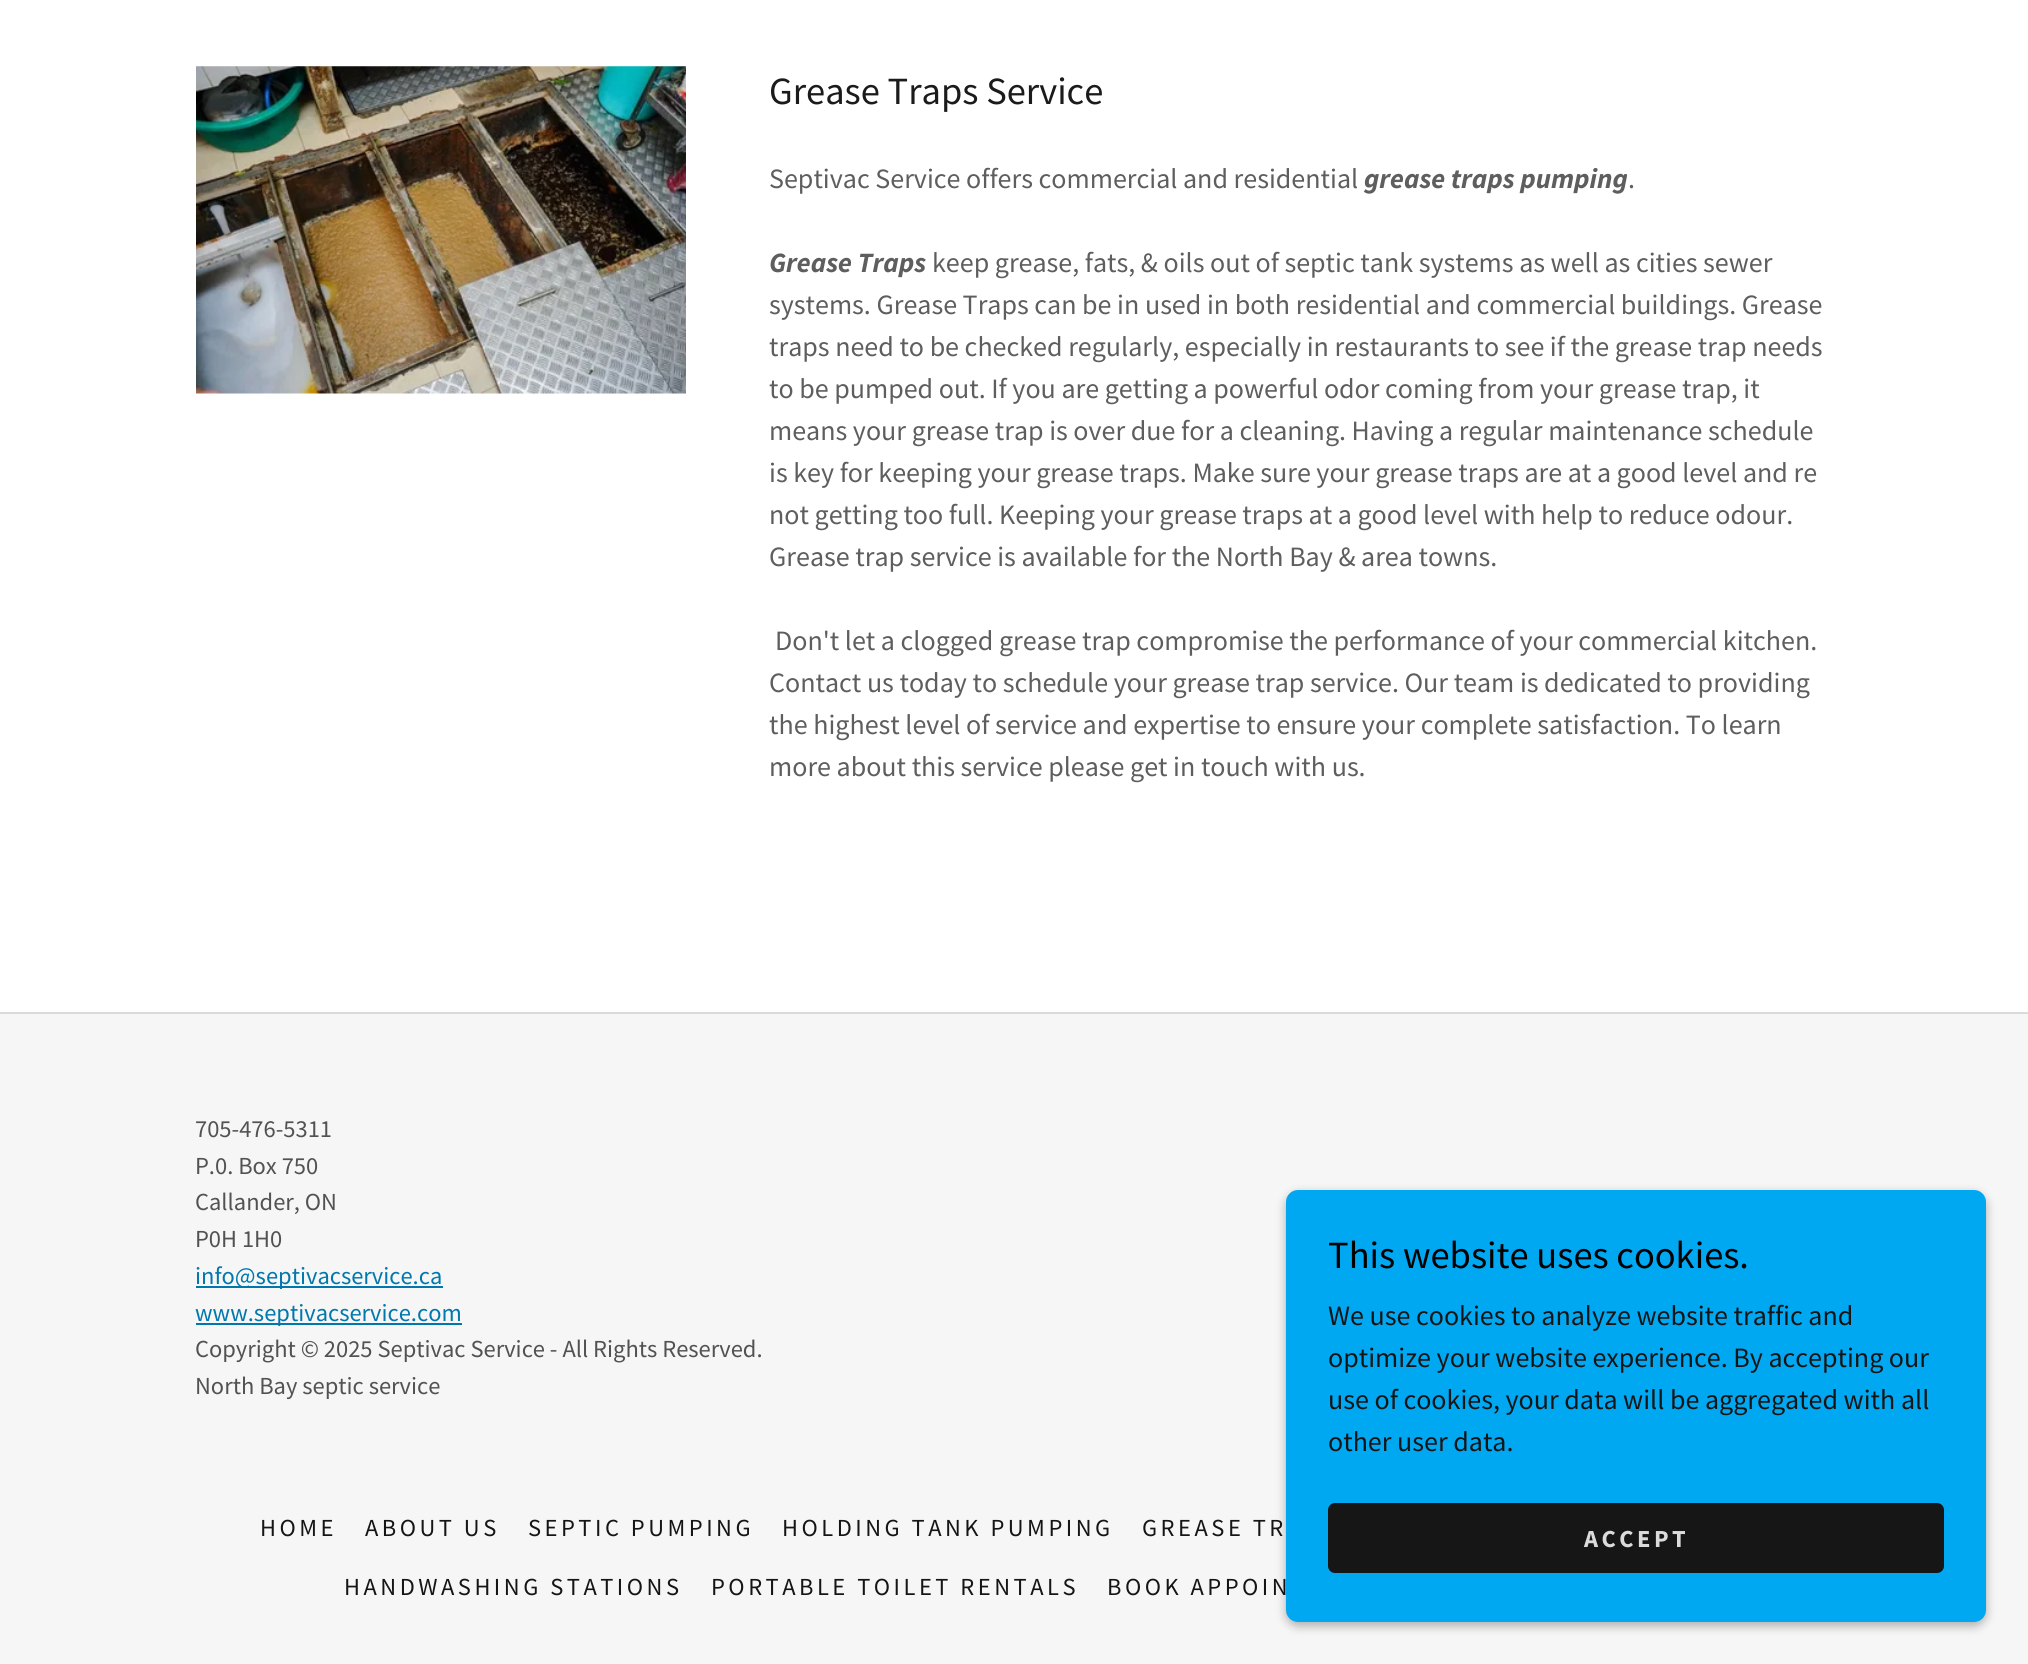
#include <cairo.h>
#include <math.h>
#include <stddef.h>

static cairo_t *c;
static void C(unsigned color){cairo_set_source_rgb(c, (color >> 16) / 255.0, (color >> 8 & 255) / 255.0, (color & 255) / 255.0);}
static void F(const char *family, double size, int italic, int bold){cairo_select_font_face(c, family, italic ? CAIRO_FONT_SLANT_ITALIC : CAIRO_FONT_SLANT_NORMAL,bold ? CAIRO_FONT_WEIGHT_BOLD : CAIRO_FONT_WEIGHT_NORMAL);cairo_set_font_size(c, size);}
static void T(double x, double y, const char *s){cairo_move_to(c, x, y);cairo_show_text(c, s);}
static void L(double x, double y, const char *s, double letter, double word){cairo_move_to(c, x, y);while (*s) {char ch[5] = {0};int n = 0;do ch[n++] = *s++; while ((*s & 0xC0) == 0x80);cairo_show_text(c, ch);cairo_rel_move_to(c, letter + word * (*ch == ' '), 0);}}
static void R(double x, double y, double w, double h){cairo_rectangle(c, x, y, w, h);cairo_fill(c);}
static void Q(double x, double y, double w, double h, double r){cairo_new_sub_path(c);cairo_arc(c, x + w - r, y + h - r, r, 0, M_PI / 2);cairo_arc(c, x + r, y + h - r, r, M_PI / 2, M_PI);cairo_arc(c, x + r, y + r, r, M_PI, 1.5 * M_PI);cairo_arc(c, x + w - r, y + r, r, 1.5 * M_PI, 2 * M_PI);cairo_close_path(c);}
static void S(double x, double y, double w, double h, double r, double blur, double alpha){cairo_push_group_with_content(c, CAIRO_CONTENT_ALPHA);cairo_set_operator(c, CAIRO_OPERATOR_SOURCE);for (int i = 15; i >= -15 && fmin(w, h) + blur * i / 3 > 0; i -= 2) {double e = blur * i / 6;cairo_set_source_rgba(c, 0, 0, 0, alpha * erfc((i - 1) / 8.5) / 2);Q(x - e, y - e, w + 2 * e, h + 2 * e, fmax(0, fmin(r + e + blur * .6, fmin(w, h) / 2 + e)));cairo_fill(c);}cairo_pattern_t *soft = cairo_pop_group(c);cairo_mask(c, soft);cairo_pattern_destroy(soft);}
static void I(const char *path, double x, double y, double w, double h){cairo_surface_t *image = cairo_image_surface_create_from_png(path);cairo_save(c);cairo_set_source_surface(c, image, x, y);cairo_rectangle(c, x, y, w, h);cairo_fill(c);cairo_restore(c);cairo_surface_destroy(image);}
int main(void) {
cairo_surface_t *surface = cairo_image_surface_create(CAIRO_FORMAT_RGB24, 2028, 1664);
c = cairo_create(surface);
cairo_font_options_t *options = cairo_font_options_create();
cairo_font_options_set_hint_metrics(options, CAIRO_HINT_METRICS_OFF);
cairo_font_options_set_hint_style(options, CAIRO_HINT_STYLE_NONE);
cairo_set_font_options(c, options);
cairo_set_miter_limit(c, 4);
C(0xf6f6f6);
cairo_paint(c);
C(0xffffff);
R(0,0,2028,1012);
I("1.png",196,66,490,328);
F("Source Sans Pro",38.5,0,0);
C(0x1b1b1b);
T(769,104,"Grease Traps Service");
F("Source Sans Pro",28,0,0);
C(0x5e5e5e);
T(769,188,"Septivac Service offers commercial and residential");
F("Source Sans Pro",28,1,1);
T(1364,188,"grease traps pumping");
F("Source Sans Pro",28,0,0);
T(1628,188,".");
F("Source Sans Pro",28,1,1);
T(769,272,"Grease Traps");
F("Source Sans Pro",28,0,0);
T(932,272,"keep grease, fats, & oils out of septic tank systems as well as cities sewer");
T(769,314,"systems. Grease Traps can be in used in both residential and commercial buildings. Grease");
T(769,356,"traps need to be checked regularly, especially in restaurants to see if the grease trap needs");
T(769,398,"to be pumped out. If you are getting a powerful odor coming from your grease trap, it");
T(769,440,"means your grease trap is over due for a cleaning. Having a regular maintenance schedule");
T(769,482,"is key for keeping your grease traps. Make sure your grease traps are at a good level and re");
T(769,524,"not getting too full. Keeping your grease traps at a good level with help to reduce odour.");
T(769,566,"Grease trap service is available for the North Bay & area towns.");
T(775,650,"Don't let a clogged grease trap compromise the performance of your commercial kitchen.");
T(769,692,"Contact us today to schedule your grease trap service. Our team is dedicated to providing");
T(769,734,"the highest level of service and expertise to ensure your complete satisfaction. To learn");
T(769,776,"more about this service please get in touch with us.");
C(0xdadada);
R(0,1012,2028,2);
F("Source Sans Pro",24.5,0,0);
C(0x525252);
T(195,1137,"705-476-5311");
T(195,1174,"P.0. Box 750");
T(195,1210,"Callander, ON");
T(195,1247,"P0H 1H0");
C(0x0078ad);
R(196,1286,247,2);
T(195,1284,"info@septivacservice.ca");
R(196,1323,266,2);
T(195,1321,"www.septivacservice.com");
C(0x525252);
T(195,1357,"Copyright © 2025 Septivac Service - All Rights Reserved.");
T(195,1394,"North Bay septic service");
C(0x151515);
L(260,1536,"HOME",3.5,0);
L(365,1536,"ABOUT US",3.5,0);
L(528,1536,"SEPTIC PUMPING",3.5,0);
L(782,1536,"HOLDING TANK PUMPING",3.5,0);
L(1142,1536,"GREASE TR",3.5,0);
L(344,1595,"HANDWASHING STATIONS",3.5,0);
L(711,1595,"PORTABLE TOILET RENTALS",3.5,0);
L(1107,1595,"BOOK APPOIN",3.5,0);
C(0x000000);
S(1286,1194,700,432,12,5,.3);
C(0x00a8f2);
Q(1286,1190,700,432,12);
cairo_fill(c);
F("Source Sans Pro",38.5,0,0);
C(0x000000);
T(1328,1268,"This website uses cookies.");
F("Source Sans Pro",28,0,0);
C(0x151515);
T(1328,1325,"We use cookies to analyze website traffic and");
T(1328,1367,"optimize your website experience. By accepting our");
T(1328,1409,"use of cookies, your data will be aggregated with all");
T(1328,1451,"other user data.");
C(0x161616);
Q(1328,1503,616,70,7);
cairo_fill(c);
F("Source Sans Pro",24.5,0,1);
C(0xdbdbdb);
L(1584,1547,"ACCEPT",3.5,0);
cairo_surface_write_to_png(surface, "o.png");
cairo_font_options_destroy(options);
cairo_destroy(c);
cairo_surface_destroy(surface);
return 0;
}
